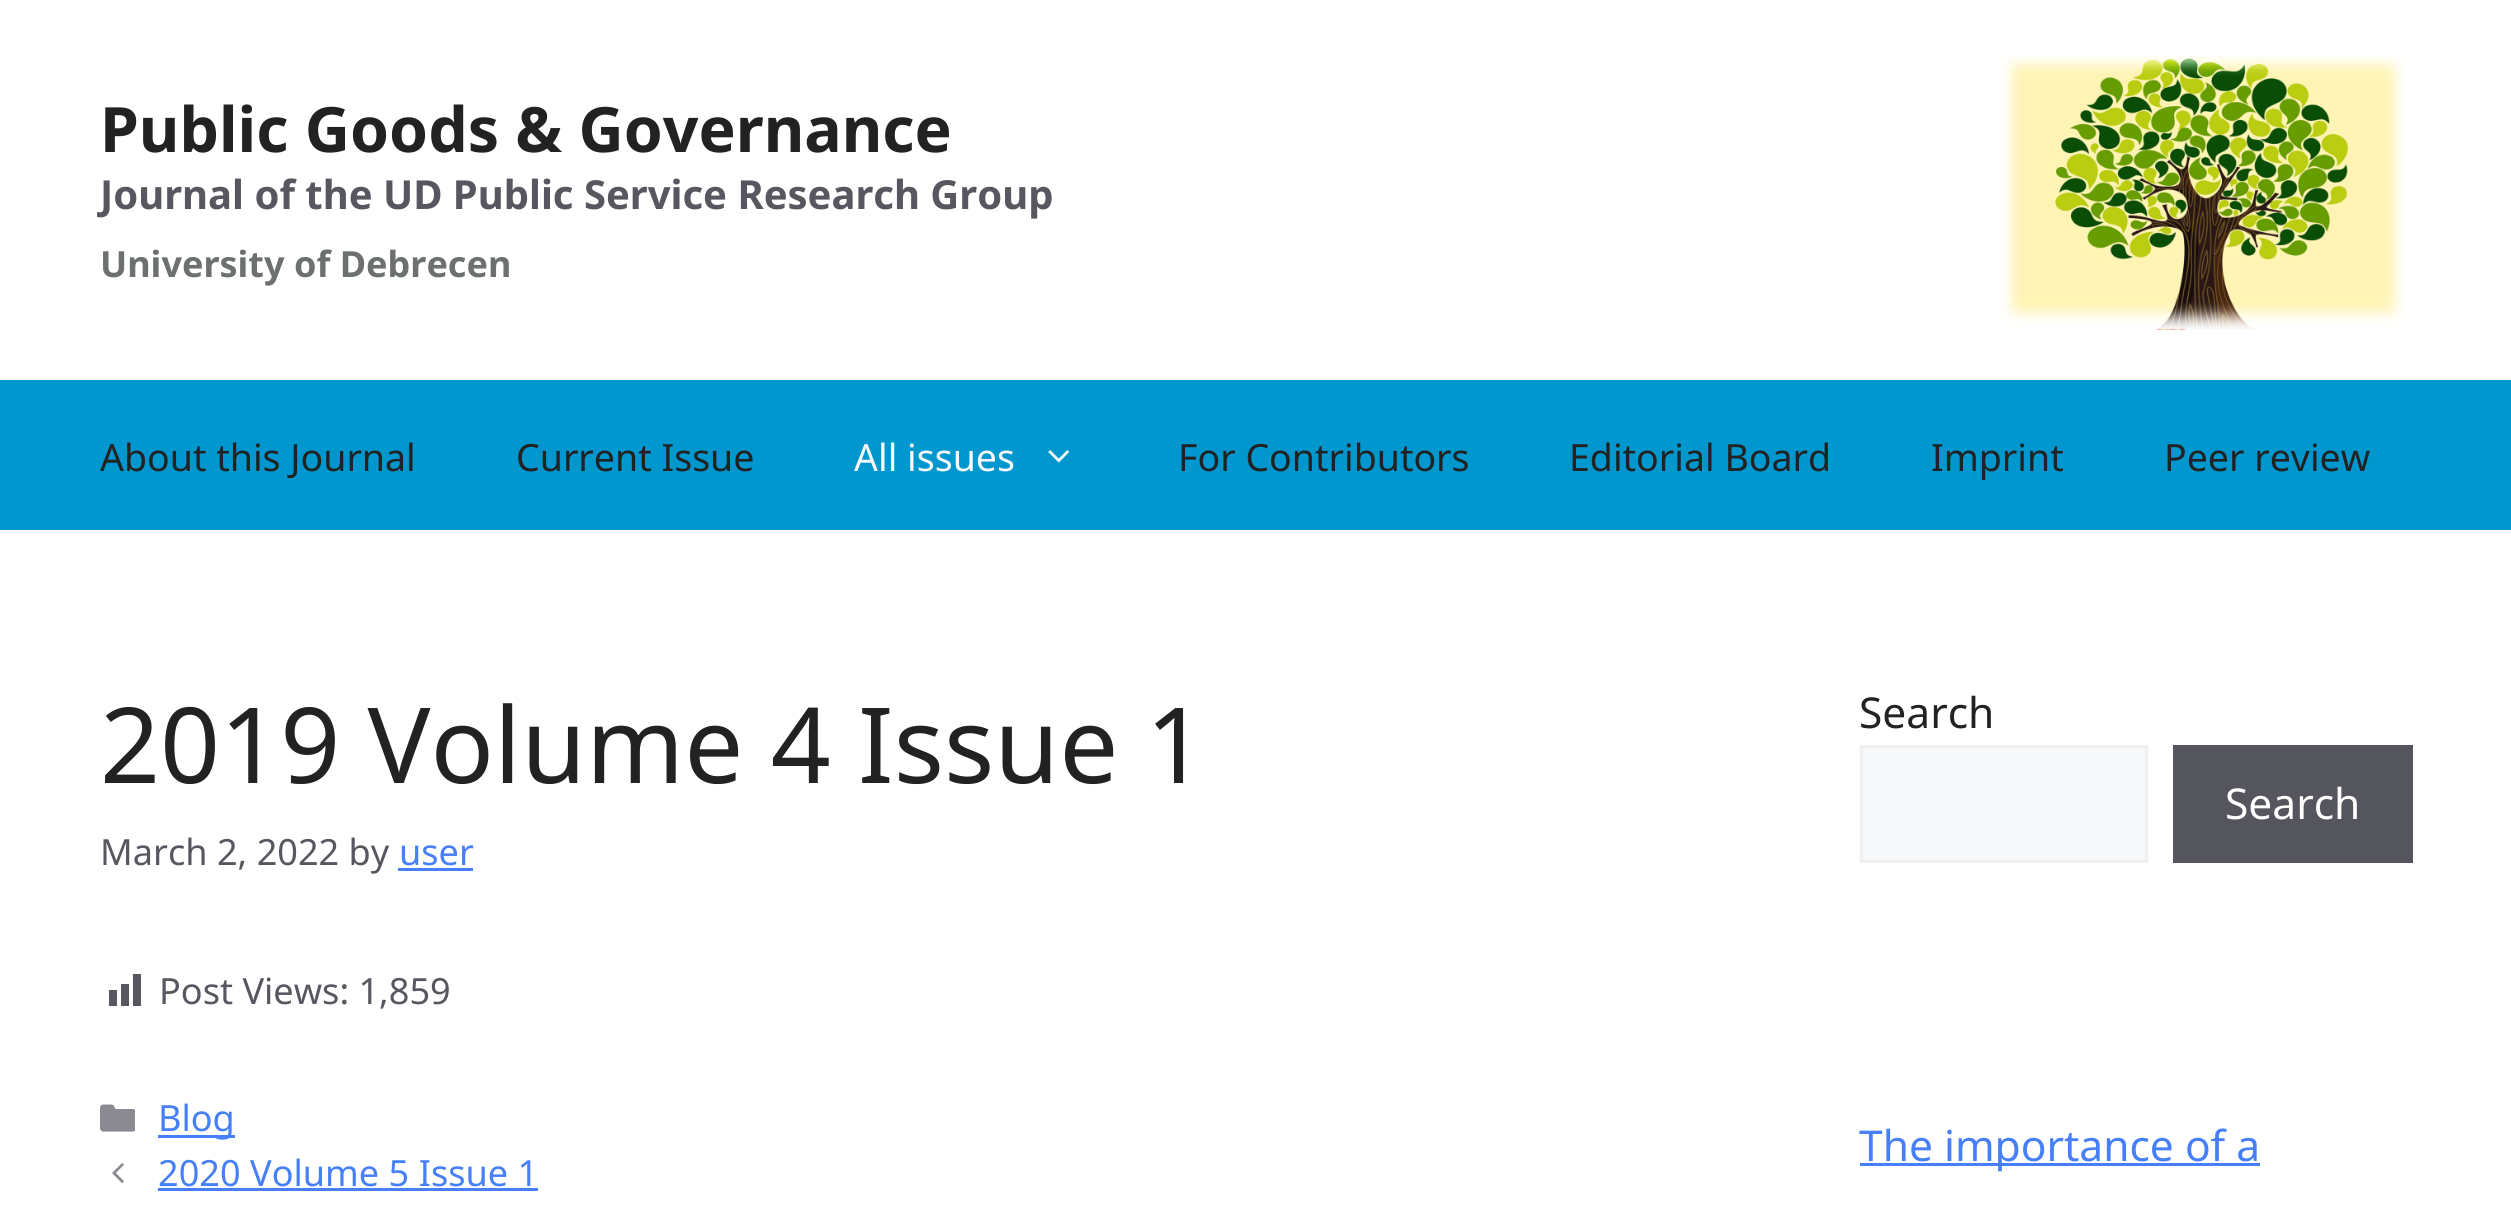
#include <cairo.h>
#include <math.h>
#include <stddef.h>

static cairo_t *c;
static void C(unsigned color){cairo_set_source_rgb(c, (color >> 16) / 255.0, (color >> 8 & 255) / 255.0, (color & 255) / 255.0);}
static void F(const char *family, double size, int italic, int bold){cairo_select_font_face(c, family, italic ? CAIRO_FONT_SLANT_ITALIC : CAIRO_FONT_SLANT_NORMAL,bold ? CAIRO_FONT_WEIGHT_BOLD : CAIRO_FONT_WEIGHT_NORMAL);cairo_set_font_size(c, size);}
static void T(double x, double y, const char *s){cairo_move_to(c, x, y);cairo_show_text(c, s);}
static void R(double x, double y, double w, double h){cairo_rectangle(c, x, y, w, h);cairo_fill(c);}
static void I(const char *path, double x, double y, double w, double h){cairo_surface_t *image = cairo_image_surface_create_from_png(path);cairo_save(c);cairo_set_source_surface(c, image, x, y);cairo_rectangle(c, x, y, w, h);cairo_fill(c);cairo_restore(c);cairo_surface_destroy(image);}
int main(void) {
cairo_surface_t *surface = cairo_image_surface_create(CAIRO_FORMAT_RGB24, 2511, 1215);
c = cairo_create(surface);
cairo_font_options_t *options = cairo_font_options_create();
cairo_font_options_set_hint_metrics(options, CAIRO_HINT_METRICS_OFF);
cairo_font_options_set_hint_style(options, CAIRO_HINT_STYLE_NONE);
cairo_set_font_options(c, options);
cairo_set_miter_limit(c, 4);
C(0xffffff);
cairo_paint(c);
F("Noto Sans",62.5,0,1);
C(0x222222);
T(100,152,"Public Goods & Governance");
F("Noto Sans",40,0,1);
C(0x575760);
T(100,209,"Journal of the UD Public Service Research Group");
F("Noto Sans",36,0,1);
C(0x6c716e);
T(100,277,"University of Debrecen");
I("1.png",2001,54,404,276);
C(0x0096ce);
R(0,380,2511,150);
F("Noto Sans",37.5,0,0);
C(0x222222);
T(100,471,"About this Journal");
T(516,471,"Current Issue");
C(0xf7f8f9);
T(854,471,"All issues");
I("2.png",1048,450,21,13);
C(0x222222);
T(1178,471,"For Contributors");
T(1569,471,"Editorial Board");
T(1931,471,"Imprint");
T(2164,471,"Peer review");
F("Noto Sans",105,0,0);
T(100,783,"2019 Volume 4 Issue 1");
F("Noto Sans",36.1,0,0);
C(0x575760);
T(100,865,"March 2, 2022 by");
C(0x467ff7);
T(399,865,"user");
R(398,868,75,3);
I("3.png",109,974,32,32);
C(0x575760);
T(159,1004,"Post Views: 1,859");
I("4.png",100,1104,35,28);
C(0x467ff7);
R(158,1135,77,3);
T(158,1131,"Blog");
I("5.png",112,1163,12,20);
T(158,1186,"2020 Volume 5 Issue 1");
R(158,1188,380,3);
F("Noto Sans",42.5,0,0);
C(0x222222);
T(1859,728,"Search");
C(0xf7f8f9);
cairo_rectangle(c,1861.5,746.5,285,115);
cairo_fill_preserve(c);
C(0xf0f0f0);
cairo_set_line_width(c,3);
cairo_stroke(c);
C(0x55555e);
R(2173,745,240,118);
C(0xffffff);
T(2225,819,"Search");
C(0x467ff7);
R(1860,1163,400,3);
T(1859,1161,"The importance of a");
cairo_surface_write_to_png(surface, "o.png");
cairo_font_options_destroy(options);
cairo_destroy(c);
cairo_surface_destroy(surface);
return 0;
}
